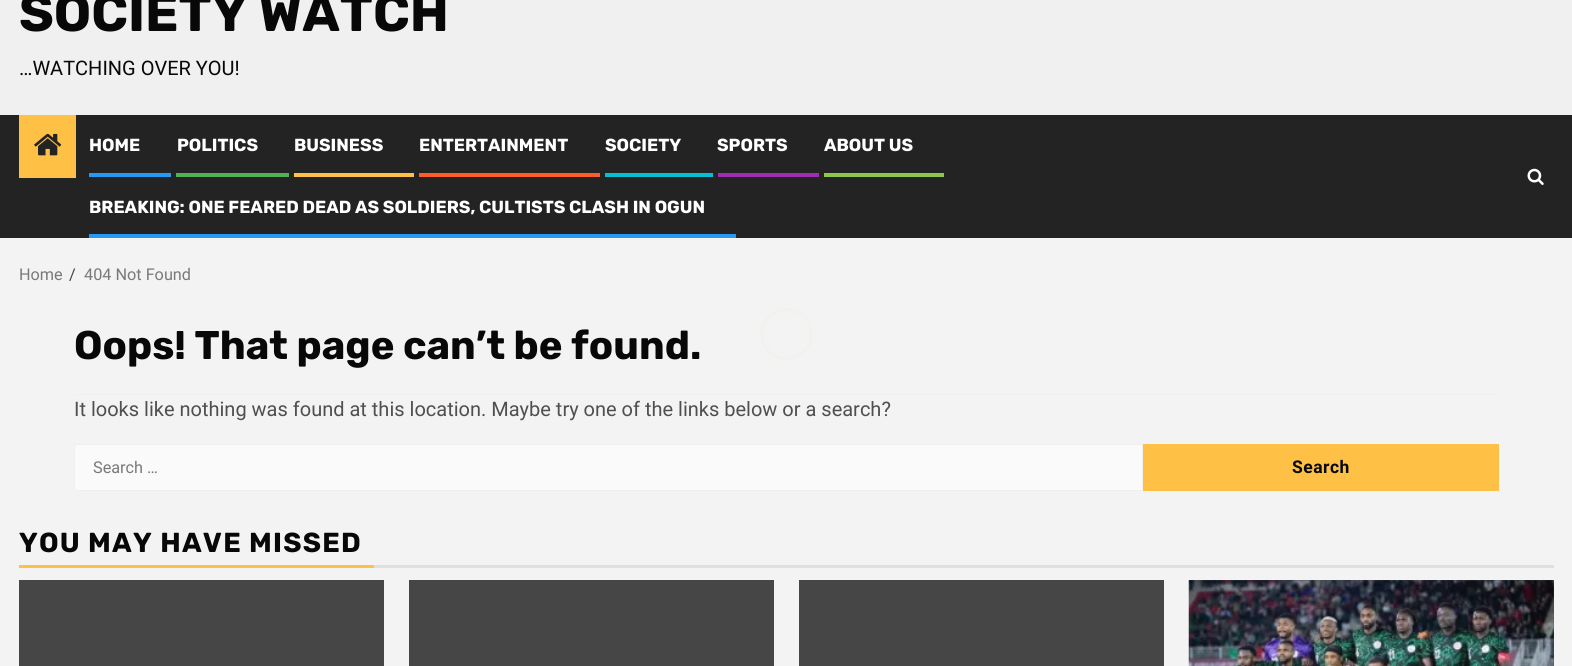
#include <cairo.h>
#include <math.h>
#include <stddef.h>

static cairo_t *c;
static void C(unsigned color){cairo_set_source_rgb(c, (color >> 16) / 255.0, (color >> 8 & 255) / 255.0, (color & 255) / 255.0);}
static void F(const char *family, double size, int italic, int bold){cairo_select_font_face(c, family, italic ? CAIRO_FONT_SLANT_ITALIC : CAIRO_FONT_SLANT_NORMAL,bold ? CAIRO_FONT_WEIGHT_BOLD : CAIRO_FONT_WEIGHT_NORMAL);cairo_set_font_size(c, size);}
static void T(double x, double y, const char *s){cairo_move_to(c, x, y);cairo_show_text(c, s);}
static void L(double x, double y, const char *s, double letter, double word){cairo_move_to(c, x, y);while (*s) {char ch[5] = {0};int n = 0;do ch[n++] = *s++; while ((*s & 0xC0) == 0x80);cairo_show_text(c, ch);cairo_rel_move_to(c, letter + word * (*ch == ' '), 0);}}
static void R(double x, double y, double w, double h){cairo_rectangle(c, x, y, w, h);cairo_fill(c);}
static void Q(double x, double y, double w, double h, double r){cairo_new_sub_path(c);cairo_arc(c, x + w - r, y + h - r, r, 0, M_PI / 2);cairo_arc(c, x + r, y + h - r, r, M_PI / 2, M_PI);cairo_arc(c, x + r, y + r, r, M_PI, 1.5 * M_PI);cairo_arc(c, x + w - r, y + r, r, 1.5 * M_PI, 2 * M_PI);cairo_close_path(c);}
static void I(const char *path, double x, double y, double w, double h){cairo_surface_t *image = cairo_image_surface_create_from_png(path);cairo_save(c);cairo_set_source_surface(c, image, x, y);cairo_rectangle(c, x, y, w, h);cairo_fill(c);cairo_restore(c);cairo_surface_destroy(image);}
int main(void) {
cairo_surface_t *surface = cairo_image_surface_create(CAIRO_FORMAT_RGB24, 1572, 666);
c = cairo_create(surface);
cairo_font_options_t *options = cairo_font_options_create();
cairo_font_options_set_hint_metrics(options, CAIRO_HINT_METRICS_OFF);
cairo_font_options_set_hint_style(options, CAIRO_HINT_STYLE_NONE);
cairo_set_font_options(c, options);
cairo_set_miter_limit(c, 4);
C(0xf3f3f3);
cairo_paint(c);
C(0xf0f0f0);
R(0,0,1572,115);
F("Rubik",52.5,0,1);
C(0x080808);
T(19,31,"SOCIETY WATCH");
F("Roboto",20,0,0);
T(19,75,"…WATCHING OVER YOU!");
C(0x232323);
R(0,115,1572,123);
C(0xffc145);
R(19,115,57,63);
I("1.png",34,133,28,23);
F("Rubik",17.5,0,1);
C(0xffffff);
T(89,151,"HOME");
C(0x2899f3);
R(89,173,82,4);
C(0xffffff);
T(177,151,"POLITICS");
C(0x51b155);
R(176,173,113,4);
C(0xffffff);
T(294,151,"BUSINESS");
C(0xffc145);
R(294,173,120,4);
C(0xffffff);
T(419,151,"ENTERTAINMENT");
C(0xff5c29);
R(419,173,181,4);
C(0xffffff);
T(605,151,"SOCIETY");
C(0x08bed5);
R(605,173,108,4);
C(0xffffff);
T(717,151,"SPORTS");
C(0x9f2db2);
R(718,173,101,4);
C(0xffffff);
T(824,151,"ABOUT US");
C(0x8ec54f);
R(824,173,120,4);
C(0xffffff);
T(89,213,"BREAKING: ONE FEARED DEAD AS SOLDIERS, CULTISTS CLASH IN OGUN");
C(0x2899f3);
R(89,234,647,4);
I("2.png",1527,168,17,17);
F("Roboto",16.25,0,0);
C(0x797979);
T(19,280,"Home");
C(0x3f444c);
T(69,280,"/");
C(0x797979);
T(84,280,"404 Not Found");
C(0xefefef);
R(74,394,1425,1);
F("Rubik",40,0,1);
C(0x080808);
T(74,359,"Oops! That page can’t be found.");
F("Roboto",20,0,0);
C(0x4f4f4f);
T(74,416,"It looks like nothing was found at this location. Maybe try one of the links below or a search?");
C(0xfafafa);
cairo_rectangle(c,74.5,444.5,1068,46);
cairo_fill_preserve(c);
C(0xefefef);
cairo_set_line_width(c,1);
cairo_stroke(c);
F("Roboto",16.25,0,0);
C(0x797979);
T(93,473,"Search …");
C(0xffc145);
R(1143,444,356,47);
F("Roboto",17.5,0,1);
C(0x080808);
L(1292,473,"Search",.5,0);
C(0xffc145);
R(19,565,355,3);
F("Rubik",27.5,0,1);
C(0x080808);
L(19,552,"YOU MAY HAVE MISSED",1.25,0);
C(0xdfdfdf);
R(374,565,1180,3);
C(0x464646);
R(19,580,365,86);
R(409,580,365,86);
R(799,580,365,86);
R(1189,580,365,86);
I("3.png",1188,580,366,86);
Q(761.5,309.5,50,49,24.5);
C(0xf3f1ed);
cairo_set_line_width(c,3);
cairo_stroke(c);
cairo_surface_write_to_png(surface, "o.png");
cairo_font_options_destroy(options);
cairo_destroy(c);
cairo_surface_destroy(surface);
return 0;
}
